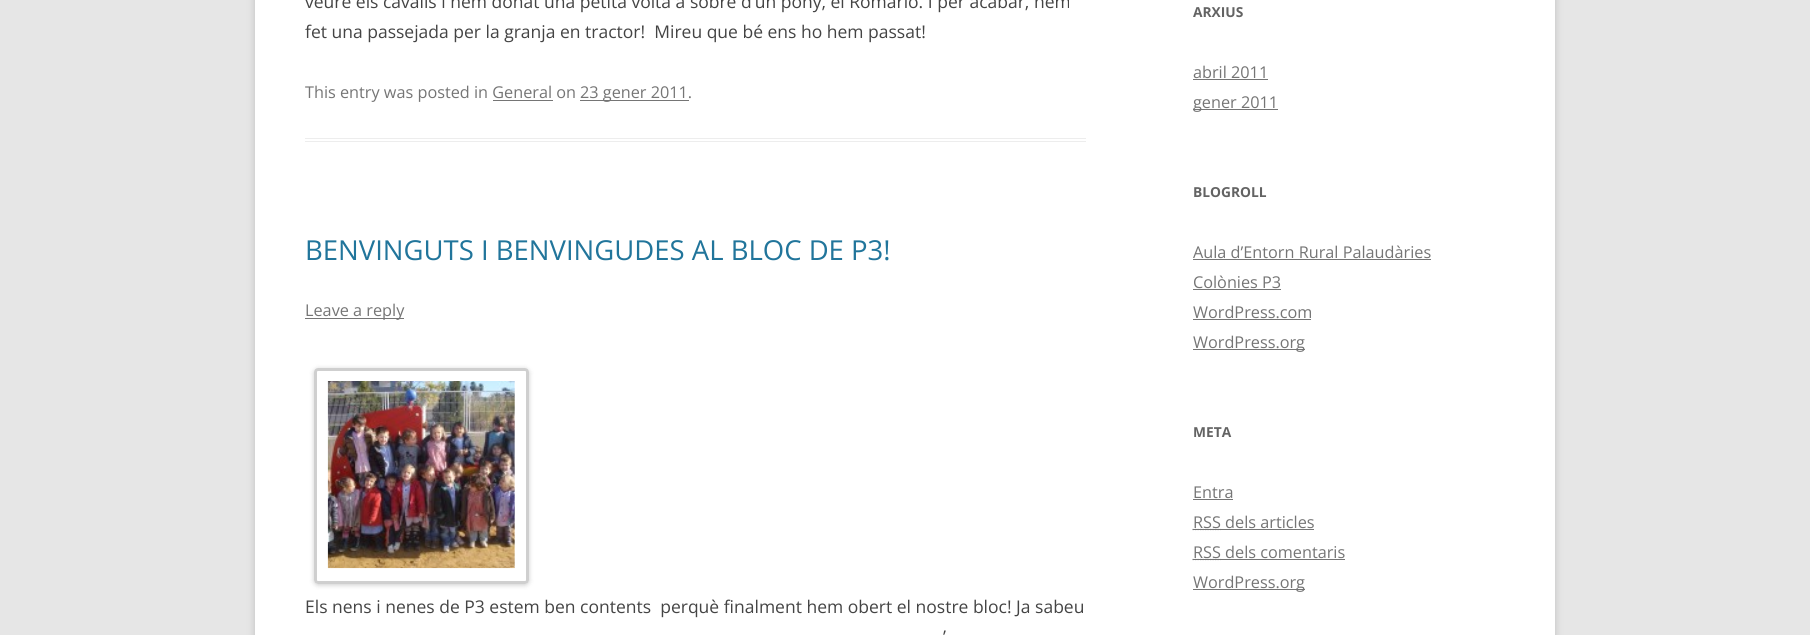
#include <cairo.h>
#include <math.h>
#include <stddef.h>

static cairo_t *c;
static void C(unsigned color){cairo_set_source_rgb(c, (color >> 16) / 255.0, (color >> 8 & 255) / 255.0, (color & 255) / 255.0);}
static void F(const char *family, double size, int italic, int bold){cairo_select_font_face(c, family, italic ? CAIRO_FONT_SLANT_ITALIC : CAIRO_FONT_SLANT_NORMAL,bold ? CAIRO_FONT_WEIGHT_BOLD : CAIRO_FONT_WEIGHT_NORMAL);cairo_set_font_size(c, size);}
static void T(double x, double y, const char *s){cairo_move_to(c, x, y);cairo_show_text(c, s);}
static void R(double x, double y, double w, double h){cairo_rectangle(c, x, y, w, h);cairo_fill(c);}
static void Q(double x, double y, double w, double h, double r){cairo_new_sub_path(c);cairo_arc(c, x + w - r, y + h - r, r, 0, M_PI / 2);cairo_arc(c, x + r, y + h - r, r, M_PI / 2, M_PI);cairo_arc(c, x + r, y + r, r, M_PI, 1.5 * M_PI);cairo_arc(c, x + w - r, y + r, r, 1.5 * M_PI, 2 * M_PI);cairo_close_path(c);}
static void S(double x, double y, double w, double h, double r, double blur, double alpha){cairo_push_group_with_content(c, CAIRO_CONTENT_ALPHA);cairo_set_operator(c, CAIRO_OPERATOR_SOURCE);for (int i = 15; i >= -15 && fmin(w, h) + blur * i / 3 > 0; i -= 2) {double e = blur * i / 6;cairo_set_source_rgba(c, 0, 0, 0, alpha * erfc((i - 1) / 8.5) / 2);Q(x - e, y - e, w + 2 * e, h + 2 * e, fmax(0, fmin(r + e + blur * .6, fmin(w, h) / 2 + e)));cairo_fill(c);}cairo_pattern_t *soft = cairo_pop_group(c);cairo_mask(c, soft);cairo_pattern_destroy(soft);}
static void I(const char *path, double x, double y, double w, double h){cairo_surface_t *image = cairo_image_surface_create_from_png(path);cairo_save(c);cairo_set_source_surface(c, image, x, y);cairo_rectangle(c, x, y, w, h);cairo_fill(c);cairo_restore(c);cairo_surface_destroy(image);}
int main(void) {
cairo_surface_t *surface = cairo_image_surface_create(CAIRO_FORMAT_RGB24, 1810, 635);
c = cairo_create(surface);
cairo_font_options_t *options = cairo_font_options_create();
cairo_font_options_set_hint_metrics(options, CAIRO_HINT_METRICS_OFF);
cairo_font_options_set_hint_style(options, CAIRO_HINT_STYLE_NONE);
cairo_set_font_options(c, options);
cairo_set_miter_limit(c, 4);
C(0xe6e6e6);
cairo_paint(c);
C(0x646464);
S(255,-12,1300,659,0,4,.3);
C(0xffffff);
R(255,0,1300,635);
C(0xededed);
R(305,138,781,1);
R(305,141,781,1);
F("Open Sans",17.5,0,0);
C(0x444444);
T(305,8,"veure els cavalls i hem donat una petita volta a sobre d’un pony, el Romario. I per acabar, hem");
T(305,38,"fet una passejada per la granja en tractor!  Mireu que bé ens ho hem passat!");
F("Open Sans",16.25,0,0);
C(0x757575);
T(305,98,"This entry was posted in General on");
R(580,100,109,1);
T(580,98,"23 gener 2011.");
R(493,100,60,1);
F("Open Sans",27.5,0,0);
C(0x21759b);
T(305,260,"BENVINGUTS I BENVINGUDES AL BLOC DE P3!");
C(0x757575);
R(305,318,99,1);
F("Open Sans",16.25,0,0);
T(305,316,"Leave a reply");
cairo_save(c);
cairo_set_fill_rule(c,CAIRO_FILL_RULE_EVEN_ODD);
cairo_new_path(c);
cairo_move_to(c,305,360);
cairo_line_to(c,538,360);
cairo_line_to(c,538,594);
cairo_line_to(c,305,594);
cairo_close_path(c);
cairo_move_to(c,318,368);
cairo_line_to(c,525,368);
cairo_curve_to(c,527,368,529,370,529,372);
cairo_line_to(c,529,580);
cairo_curve_to(c,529,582,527,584,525,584);
cairo_line_to(c,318,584);
cairo_curve_to(c,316,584,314,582,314,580);
cairo_line_to(c,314,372);
cairo_curve_to(c,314,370,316,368,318,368);
cairo_close_path(c);
cairo_clip(c);
C(0x000000);
S(314,369,215,216,4,2.5,.2);
cairo_restore(c);
Q(315.5,369.5,212,213,2.5);
C(0xcfcfcf);
cairo_set_line_width(c,3);
cairo_stroke(c);
I("1.png",327,381,188,188);
F("Open Sans",17.5,0,0);
C(0x444444);
T(305,613,"Els nens i nenes de P3 estem ben contents  perquè finalment hem obert el nostre bloc! Ja sabeu");
T(943,643,"’");
F("Open Sans",13.75,0,1);
C(0x636363);
T(1193,17,"ARXIUS");
F("Open Sans",16.25,0,0);
C(0x757575);
T(1193,78,"abril 2011");
R(1193,79,75,1);
R(1193,109,85,1);
T(1193,108,"gener 2011");
F("Open Sans",13.75,0,1);
C(0x636363);
T(1193,197,"BLOGROLL");
F("Open Sans",16.25,0,0);
C(0x757575);
T(1193,258,"Aula d’Entorn Rural Palaudàries");
R(1193,259,238,1);
T(1193,288,"Colònies P3");
R(1193,289,88,1);
T(1193,318,"WordPress.com");
R(1193,319,118,1);
R(1193,349,112,1);
T(1193,348,"WordPress.org");
F("Open Sans",13.75,0,1);
C(0x636363);
T(1193,437,"META");
F("Open Sans",16.25,0,0);
C(0x757575);
T(1193,498,"Entra");
R(1193,499,40,1);
cairo_new_path(c);
cairo_move_to(c,1192.5,529.5);
cairo_line_to(c,1220.5,529.5);
cairo_set_line_width(c,1.2);
cairo_set_dash(c,(double[]){1.25,1.25},2,0);
cairo_stroke(c);
T(1193,528,"RSS dels articles");
R(1193,529,121,1);
cairo_new_path(c);
cairo_move_to(c,1192.5,559.5);
cairo_line_to(c,1220.5,559.5);
cairo_stroke(c);
T(1193,558,"RSS dels comentaris");
R(1193,559,152,1);
R(1193,589,112,1);
T(1193,588,"WordPress.org");
cairo_surface_write_to_png(surface, "o.png");
cairo_font_options_destroy(options);
cairo_destroy(c);
cairo_surface_destroy(surface);
return 0;
}
